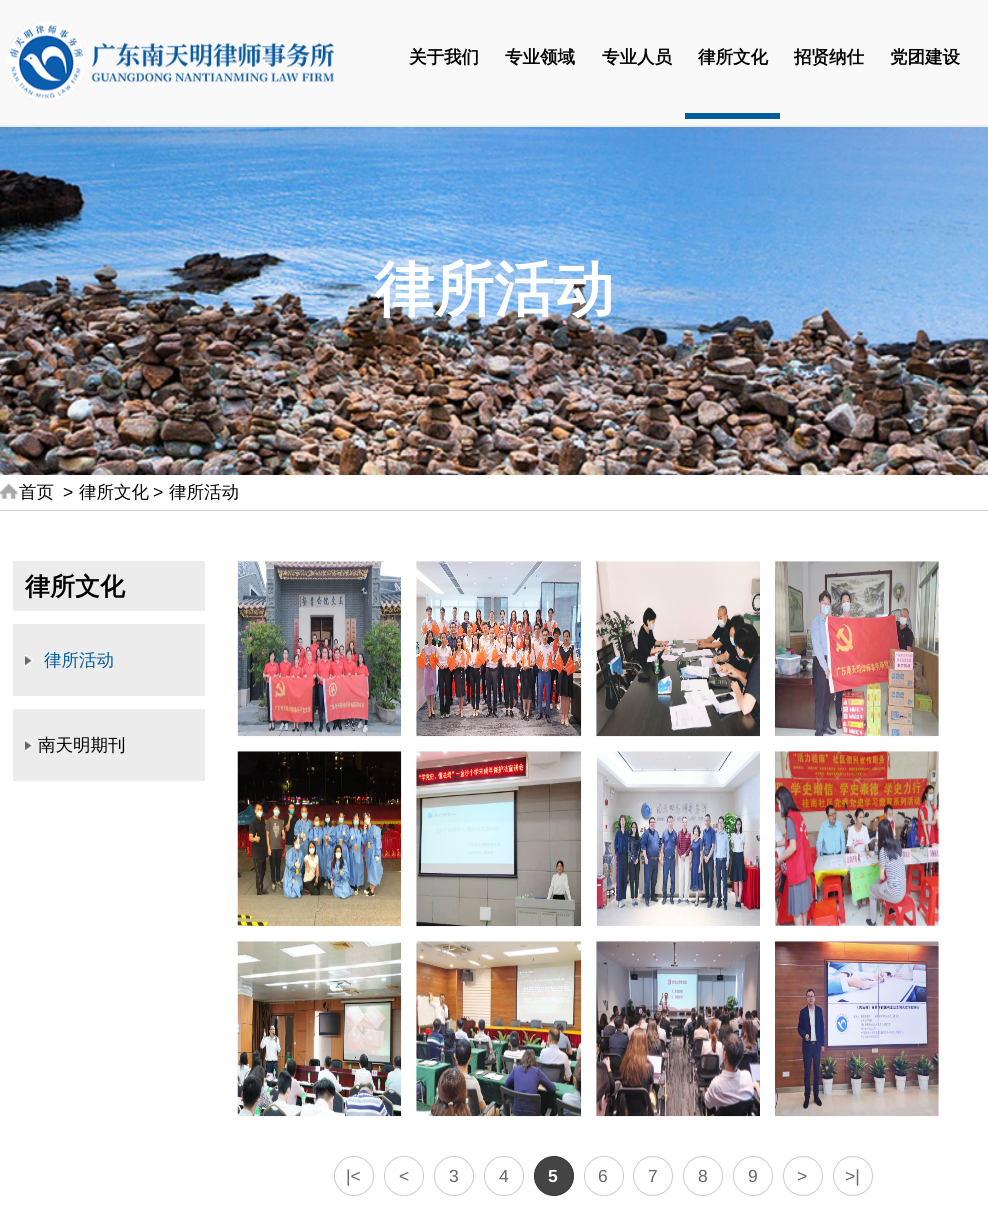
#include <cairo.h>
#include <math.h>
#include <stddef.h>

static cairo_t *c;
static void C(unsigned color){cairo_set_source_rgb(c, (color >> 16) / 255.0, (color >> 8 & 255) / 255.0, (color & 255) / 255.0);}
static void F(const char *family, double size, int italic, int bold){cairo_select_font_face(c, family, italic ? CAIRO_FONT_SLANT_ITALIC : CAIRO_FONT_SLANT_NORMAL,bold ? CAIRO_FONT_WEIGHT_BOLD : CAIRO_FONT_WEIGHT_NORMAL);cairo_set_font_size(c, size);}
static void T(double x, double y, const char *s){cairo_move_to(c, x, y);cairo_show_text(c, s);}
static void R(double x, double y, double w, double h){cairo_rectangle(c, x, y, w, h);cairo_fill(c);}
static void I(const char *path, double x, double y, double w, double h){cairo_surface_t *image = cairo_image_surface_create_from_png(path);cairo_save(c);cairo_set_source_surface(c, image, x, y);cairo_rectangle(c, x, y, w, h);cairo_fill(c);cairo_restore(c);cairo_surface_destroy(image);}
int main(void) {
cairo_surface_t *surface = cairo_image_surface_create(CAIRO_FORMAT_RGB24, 988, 1212);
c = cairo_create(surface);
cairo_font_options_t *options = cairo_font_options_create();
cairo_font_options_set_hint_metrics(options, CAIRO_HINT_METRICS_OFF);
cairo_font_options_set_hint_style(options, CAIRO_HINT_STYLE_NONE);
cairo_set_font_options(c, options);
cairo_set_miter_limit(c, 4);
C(0xffffff);
cairo_paint(c);
I("2.png",0,126,988,349);
cairo_set_source_rgba(c,0.976,0.976,0.976,0.88);
R(0,0,988,127);
C(0xededed);
R(0,125,988,1);
I("1.png",7,22,327,79);
F("WenQuanYi Zen Hei",17.5,0,1);
C(0x000000);
T(409,63,"关于我们");
T(505,63,"专业领域");
T(602,63,"专业人员");
C(0x005ca1);
R(685,113,95,6);
C(0x000000);
T(698,63,"律所文化");
T(794,63,"招贤纳仕");
T(890,63,"党团建设");
F("WenQuanYi Zen Hei",60,0,1);
C(0xffffff);
T(374,310,"律所活动");
C(0xcccccc);
R(0,510,988,1);
I("3.png",0,483,18,16);
F("WenQuanYi Zen Hei Medium",17.5,0,0);
C(0x000000);
T(19,498,"首页");
F("Liberation Sans",17.5,0,0);
T(63,498,">");
F("WenQuanYi Zen Hei Medium",17.5,0,0);
T(79,498,"律所文化");
F("Liberation Sans",17.5,0,0);
T(153,498,">");
F("WenQuanYi Zen Hei Medium",17.5,0,0);
T(169,498,"律所活动");
C(0xececec);
R(13,561,192,50);
F("WenQuanYi Zen Hei",25,0,1);
C(0x000000);
T(25,595,"律所文化");
C(0xececec);
R(13,624,192,72);
I("4.png",25,655,8,12);
F("WenQuanYi Zen Hei Medium",17.5,0,0);
C(0x005ca1);
T(44,666,"律所活动");
C(0xececec);
R(13,709,192,72);
I("4.png",25,740,8,12);
C(0x000000);
T(38,751,"南天明期刊");
I("5.png",237,561,164,176);
I("6.png",416,561,166,176);
I("7.png",596,561,164,176);
I("8.png",775,561,164,176);
I("9.png",237,751,165,176);
I("10.png",416,751,166,176);
I("11.png",596,751,164,175);
I("12.png",775,751,164,176);
I("13.png",237,941,165,176);
I("14.png",416,941,166,176);
I("15.png",596,941,164,176);
I("16.png",775,941,164,176);
cairo_arc(c,354,1176,19.5,0,2 * M_PI);
C(0xcccccc);
cairo_set_line_width(c,1);
cairo_stroke(c);
F("Liberation Sans",17.5,0,0);
C(0x666666);
T(346,1182,"|<");
cairo_new_path(c);
cairo_arc(c,404,1176,19.5,0,2 * M_PI);
C(0xcccccc);
cairo_stroke(c);
C(0x666666);
T(399,1182,"<");
cairo_new_path(c);
cairo_arc(c,454,1176,19.5,0,2 * M_PI);
C(0xcccccc);
cairo_stroke(c);
C(0x666666);
T(449,1182,"3");
cairo_new_path(c);
cairo_arc(c,504,1176,19.5,0,2 * M_PI);
C(0xcccccc);
cairo_stroke(c);
C(0x666666);
T(499,1182,"4");
C(0x444444);
cairo_new_path(c);
cairo_arc(c,554,1176,19.5,0,2 * M_PI);
cairo_fill_preserve(c);
C(0x333333);
cairo_stroke(c);
F("Liberation Sans",17.5,0,1);
C(0xffffff);
T(548,1182,"5");
cairo_new_path(c);
cairo_arc(c,604,1176,19.5,0,2 * M_PI);
C(0xcccccc);
cairo_stroke(c);
F("Liberation Sans",17.5,0,0);
C(0x666666);
T(598,1182,"6");
cairo_new_path(c);
cairo_arc(c,653,1176,19.5,0,2 * M_PI);
C(0xcccccc);
cairo_stroke(c);
C(0x666666);
T(648,1182,"7");
cairo_new_path(c);
cairo_arc(c,703,1176,19.5,0,2 * M_PI);
C(0xcccccc);
cairo_stroke(c);
C(0x666666);
T(698,1182,"8");
cairo_new_path(c);
cairo_arc(c,753,1176,19.5,0,2 * M_PI);
C(0xcccccc);
cairo_stroke(c);
C(0x666666);
T(748,1182,"9");
cairo_new_path(c);
cairo_arc(c,803,1176,19.5,0,2 * M_PI);
C(0xcccccc);
cairo_stroke(c);
C(0x666666);
T(797,1182,">");
cairo_new_path(c);
cairo_arc(c,853,1176,19.5,0,2 * M_PI);
C(0xcccccc);
cairo_stroke(c);
C(0x666666);
T(845,1182,">|");
cairo_surface_write_to_png(surface, "o.png");
cairo_font_options_destroy(options);
cairo_destroy(c);
cairo_surface_destroy(surface);
return 0;
}
